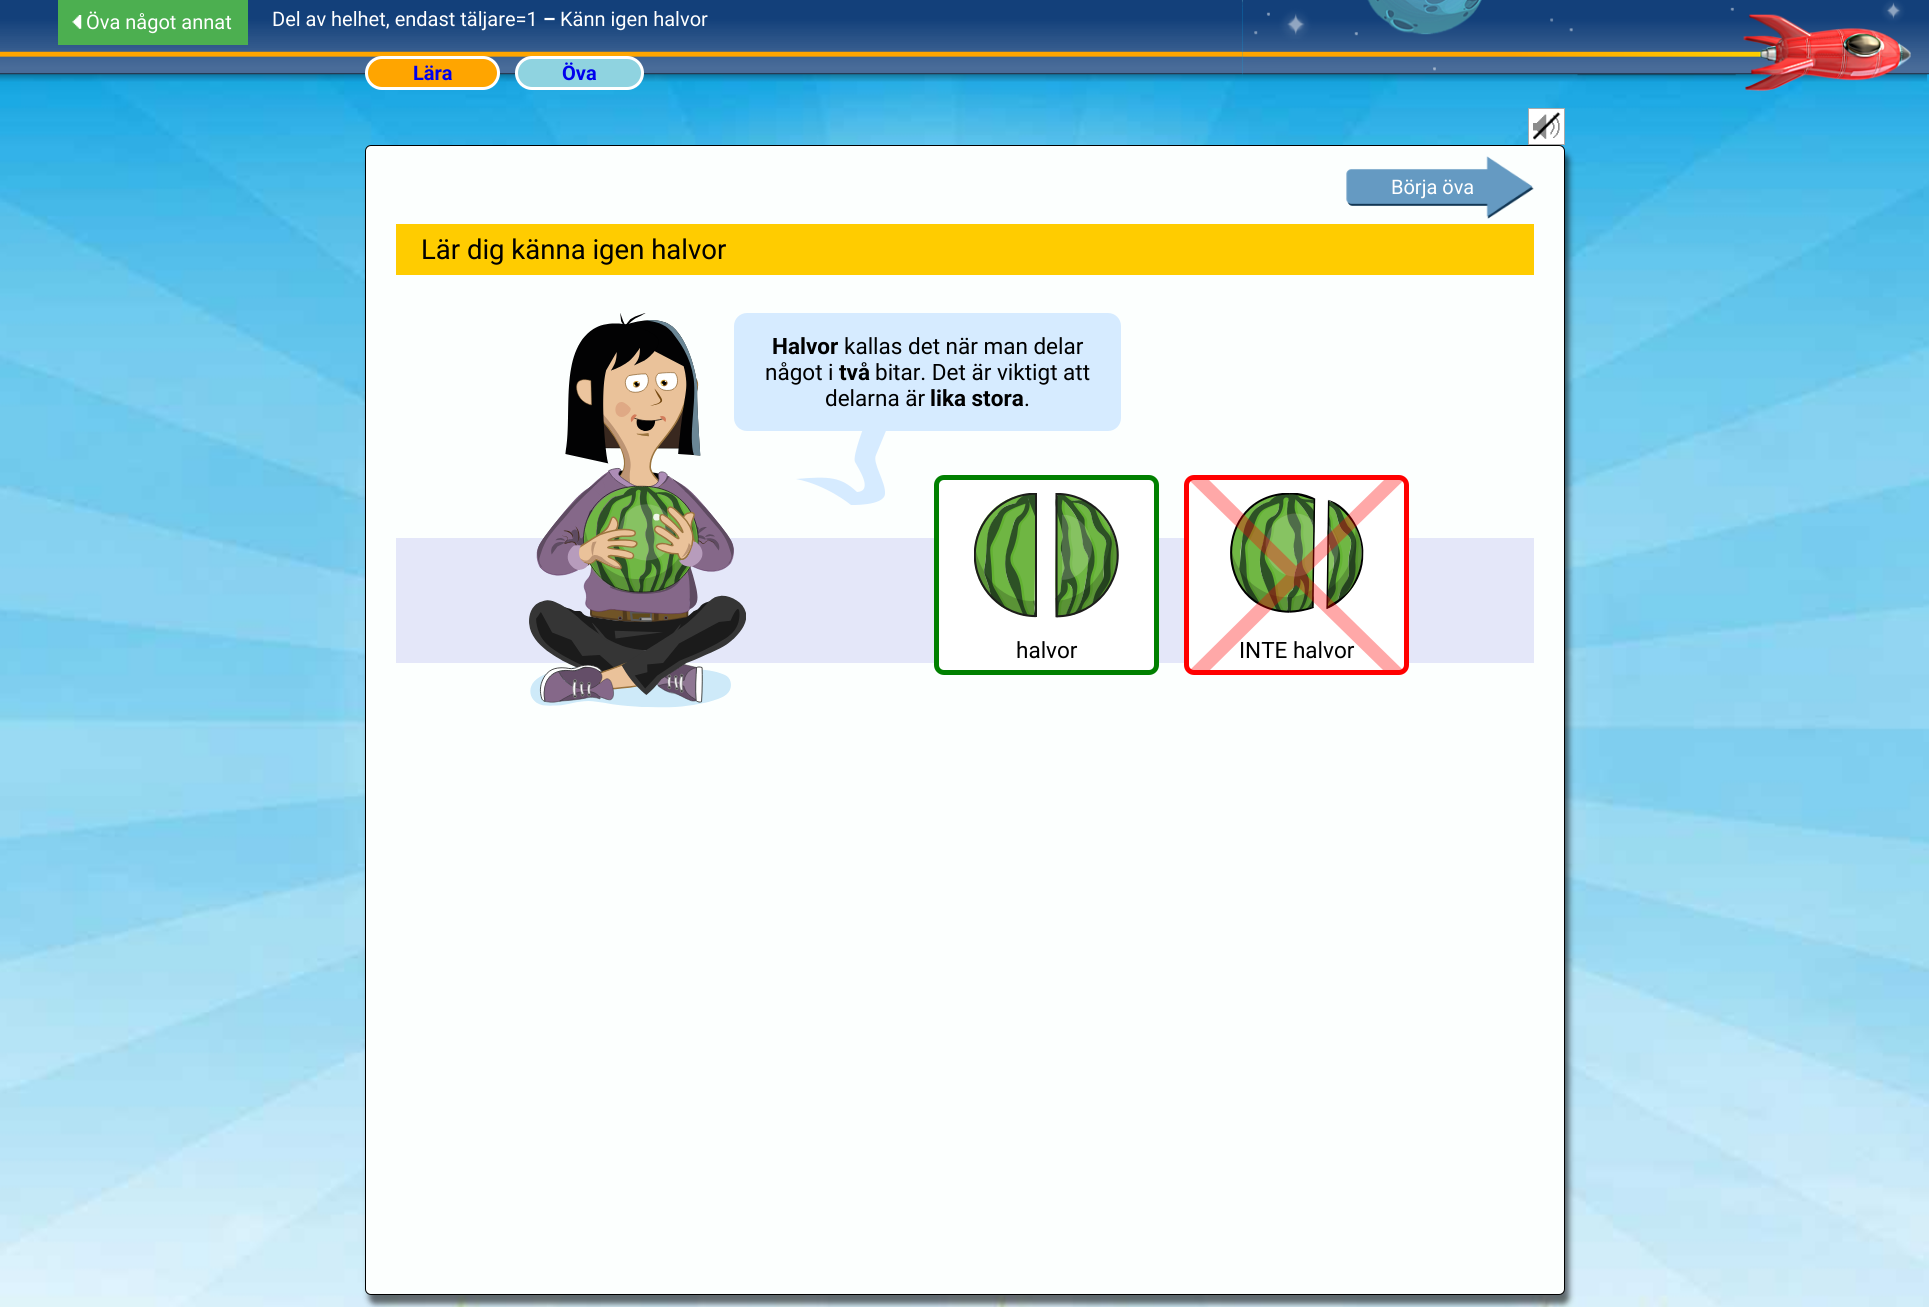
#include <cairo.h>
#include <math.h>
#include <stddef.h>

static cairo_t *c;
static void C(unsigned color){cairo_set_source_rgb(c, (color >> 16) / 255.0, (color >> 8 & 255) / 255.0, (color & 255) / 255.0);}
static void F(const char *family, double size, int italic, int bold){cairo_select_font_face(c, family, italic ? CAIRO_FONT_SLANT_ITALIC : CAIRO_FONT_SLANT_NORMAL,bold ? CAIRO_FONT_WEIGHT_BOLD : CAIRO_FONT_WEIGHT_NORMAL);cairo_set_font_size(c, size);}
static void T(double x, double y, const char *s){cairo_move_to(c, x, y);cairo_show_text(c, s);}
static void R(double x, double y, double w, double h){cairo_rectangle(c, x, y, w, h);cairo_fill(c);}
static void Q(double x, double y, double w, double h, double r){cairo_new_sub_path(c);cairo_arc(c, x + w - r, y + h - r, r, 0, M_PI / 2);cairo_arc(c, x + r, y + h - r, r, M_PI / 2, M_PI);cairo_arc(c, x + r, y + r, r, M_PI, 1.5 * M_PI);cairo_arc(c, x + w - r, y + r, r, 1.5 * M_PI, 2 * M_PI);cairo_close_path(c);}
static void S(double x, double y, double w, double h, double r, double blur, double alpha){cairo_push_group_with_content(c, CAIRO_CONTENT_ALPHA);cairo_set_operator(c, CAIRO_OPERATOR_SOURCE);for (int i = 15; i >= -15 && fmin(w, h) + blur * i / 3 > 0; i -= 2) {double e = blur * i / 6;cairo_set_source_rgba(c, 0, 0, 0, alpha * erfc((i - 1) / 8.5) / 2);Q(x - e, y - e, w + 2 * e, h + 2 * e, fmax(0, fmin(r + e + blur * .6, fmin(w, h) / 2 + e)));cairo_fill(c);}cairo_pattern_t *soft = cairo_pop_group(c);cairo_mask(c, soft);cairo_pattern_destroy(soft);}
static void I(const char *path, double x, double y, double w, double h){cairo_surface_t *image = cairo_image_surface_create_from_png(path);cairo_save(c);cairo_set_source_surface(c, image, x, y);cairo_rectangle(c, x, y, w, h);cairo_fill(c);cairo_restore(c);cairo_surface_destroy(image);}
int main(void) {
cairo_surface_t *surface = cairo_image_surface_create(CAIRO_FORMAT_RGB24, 1929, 1307);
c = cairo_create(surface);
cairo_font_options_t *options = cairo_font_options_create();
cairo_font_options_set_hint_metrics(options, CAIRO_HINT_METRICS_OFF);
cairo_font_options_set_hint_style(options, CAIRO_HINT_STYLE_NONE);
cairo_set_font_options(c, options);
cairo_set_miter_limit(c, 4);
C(0xffffff);
cairo_paint(c);
I("1.png",0,0,1929,1307);
I("2.png",0,0,1243,82);
I("3.png",1242,0,687,91);
C(0x4caf50);
R(58,0,190,45);
I("4.png",72,15,10,14);
F("Roboto",20,0,0);
C(0xffffff);
T(86,29,"Öva något annat");
T(272,26,"Del av helhet, endast täljare=1");
F("Roboto",20,0,1);
T(543,26,"–");
F("Roboto",20,0,0);
T(560,26,"Känn igen halvor");
C(0xffa500);
Q(366.5,57.5,132,31,15.5);
cairo_fill_preserve(c);
C(0xffffff);
cairo_set_line_width(c,3);
cairo_stroke(c);
F("Roboto",20,0,1);
C(0x0000ee);
T(413,80,"Lära");
C(0x8fd3e0);
Q(516.5,57.5,126,31,15.5);
cairo_fill_preserve(c);
C(0xffffff);
cairo_stroke(c);
C(0x0000ee);
T(562,80,"Öva");
C(0xffffff);
R(1529,109,35,35);
I("5.png",1533,112,28,28);
cairo_rectangle(c,1528.5,108.5,36,36);
C(0xaaaaaa);
cairo_set_line_width(c,1);
cairo_stroke(c);
C(0x000000);
S(369,154,1200,1150,6,3,.57);
C(0xfcfffe);
Q(365.5,145.5,1199,1149,5.5);
cairo_fill_preserve(c);
C(0x000000);
cairo_stroke(c);
I("6.png",1346,156,188,63);
F("Roboto",20,0,0);
C(0xffffff);
T(1391,194,"Börja öva");
C(0xffcc00);
R(396,224,1138,51);
F("Roboto",27.5,0,0);
C(0x000000);
T(421,259,"Lär dig känna igen halvor");
C(0xe4e7f9);
R(396,538,1138,125);
I("7.png",529,313,217,395);
C(0xd6ebff);
cairo_set_fill_rule(c,CAIRO_FILL_RULE_EVEN_ODD);
cairo_new_path(c);
cairo_move_to(c,866,421);
cairo_curve_to(c,866,421,852,456,855,462);
cairo_curve_to(c,858,468,874,491,857,492);
cairo_curve_to(c,841,477,830,476,796,479);
cairo_curve_to(c,827,485,851,505,851,505);
cairo_curve_to(c,851,505,884,506,885,494);
cairo_curve_to(c,886,482,872,463,876,455);
cairo_line_to(c,909,375);
cairo_line_to(c,879,376);
cairo_close_path(c);
cairo_fill(c);
Q(734,313,387,118,13);
cairo_fill(c);
F("Roboto",22.5,0,1);
C(0x000000);
T(772,354,"Halvor");
F("Roboto",22.5,0,0);
T(844,354,"kallas det när man delar");
T(765,380,"något i");
F("Roboto",22.5,0,1);
T(839,380,"två");
F("Roboto",22.5,0,0);
T(875,380,"bitar. Det är viktigt att");
T(825,406,"delarna är");
F("Roboto",22.5,0,1);
T(930,406,"lika stora");
F("Roboto",22.5,0,0);
T(1024,406,".");
C(0xffffff);
Q(936.5,477.5,220,195,7.5);
cairo_fill_preserve(c);
C(0x008000);
cairo_set_line_width(c,5);
cairo_stroke(c);
I("8.png",974,493,145,125);
C(0x000000);
T(1016,658,"halvor");
C(0xffffff);
Q(1186.5,477.5,220,195,7.5);
cairo_fill_preserve(c);
C(0xff0000);
cairo_stroke(c);
I("9.png",1230,493,134,120);
cairo_save(c);
cairo_set_fill_rule(c,CAIRO_FILL_RULE_WINDING);
cairo_rectangle(c,1189,480,215,190);
cairo_clip(c);
cairo_set_source_rgba(c,1,0,0,0.34);
cairo_set_fill_rule(c,CAIRO_FILL_RULE_EVEN_ODD);
cairo_new_path(c);
cairo_move_to(c,1404,480);
cairo_line_to(c,1384,480);
cairo_line_to(c,1296,566);
cairo_line_to(c,1209,480);
cairo_line_to(c,1189,480);
cairo_line_to(c,1286,575);
cairo_line_to(c,1189,671);
cairo_line_to(c,1209,671);
cairo_line_to(c,1296,585);
cairo_line_to(c,1384,671);
cairo_line_to(c,1404,671);
cairo_line_to(c,1306,575);
cairo_close_path(c);
cairo_fill(c);
cairo_restore(c);
C(0x000000);
T(1239,658,"INTE halvor");
cairo_surface_write_to_png(surface, "o.png");
cairo_font_options_destroy(options);
cairo_destroy(c);
cairo_surface_destroy(surface);
return 0;
}
